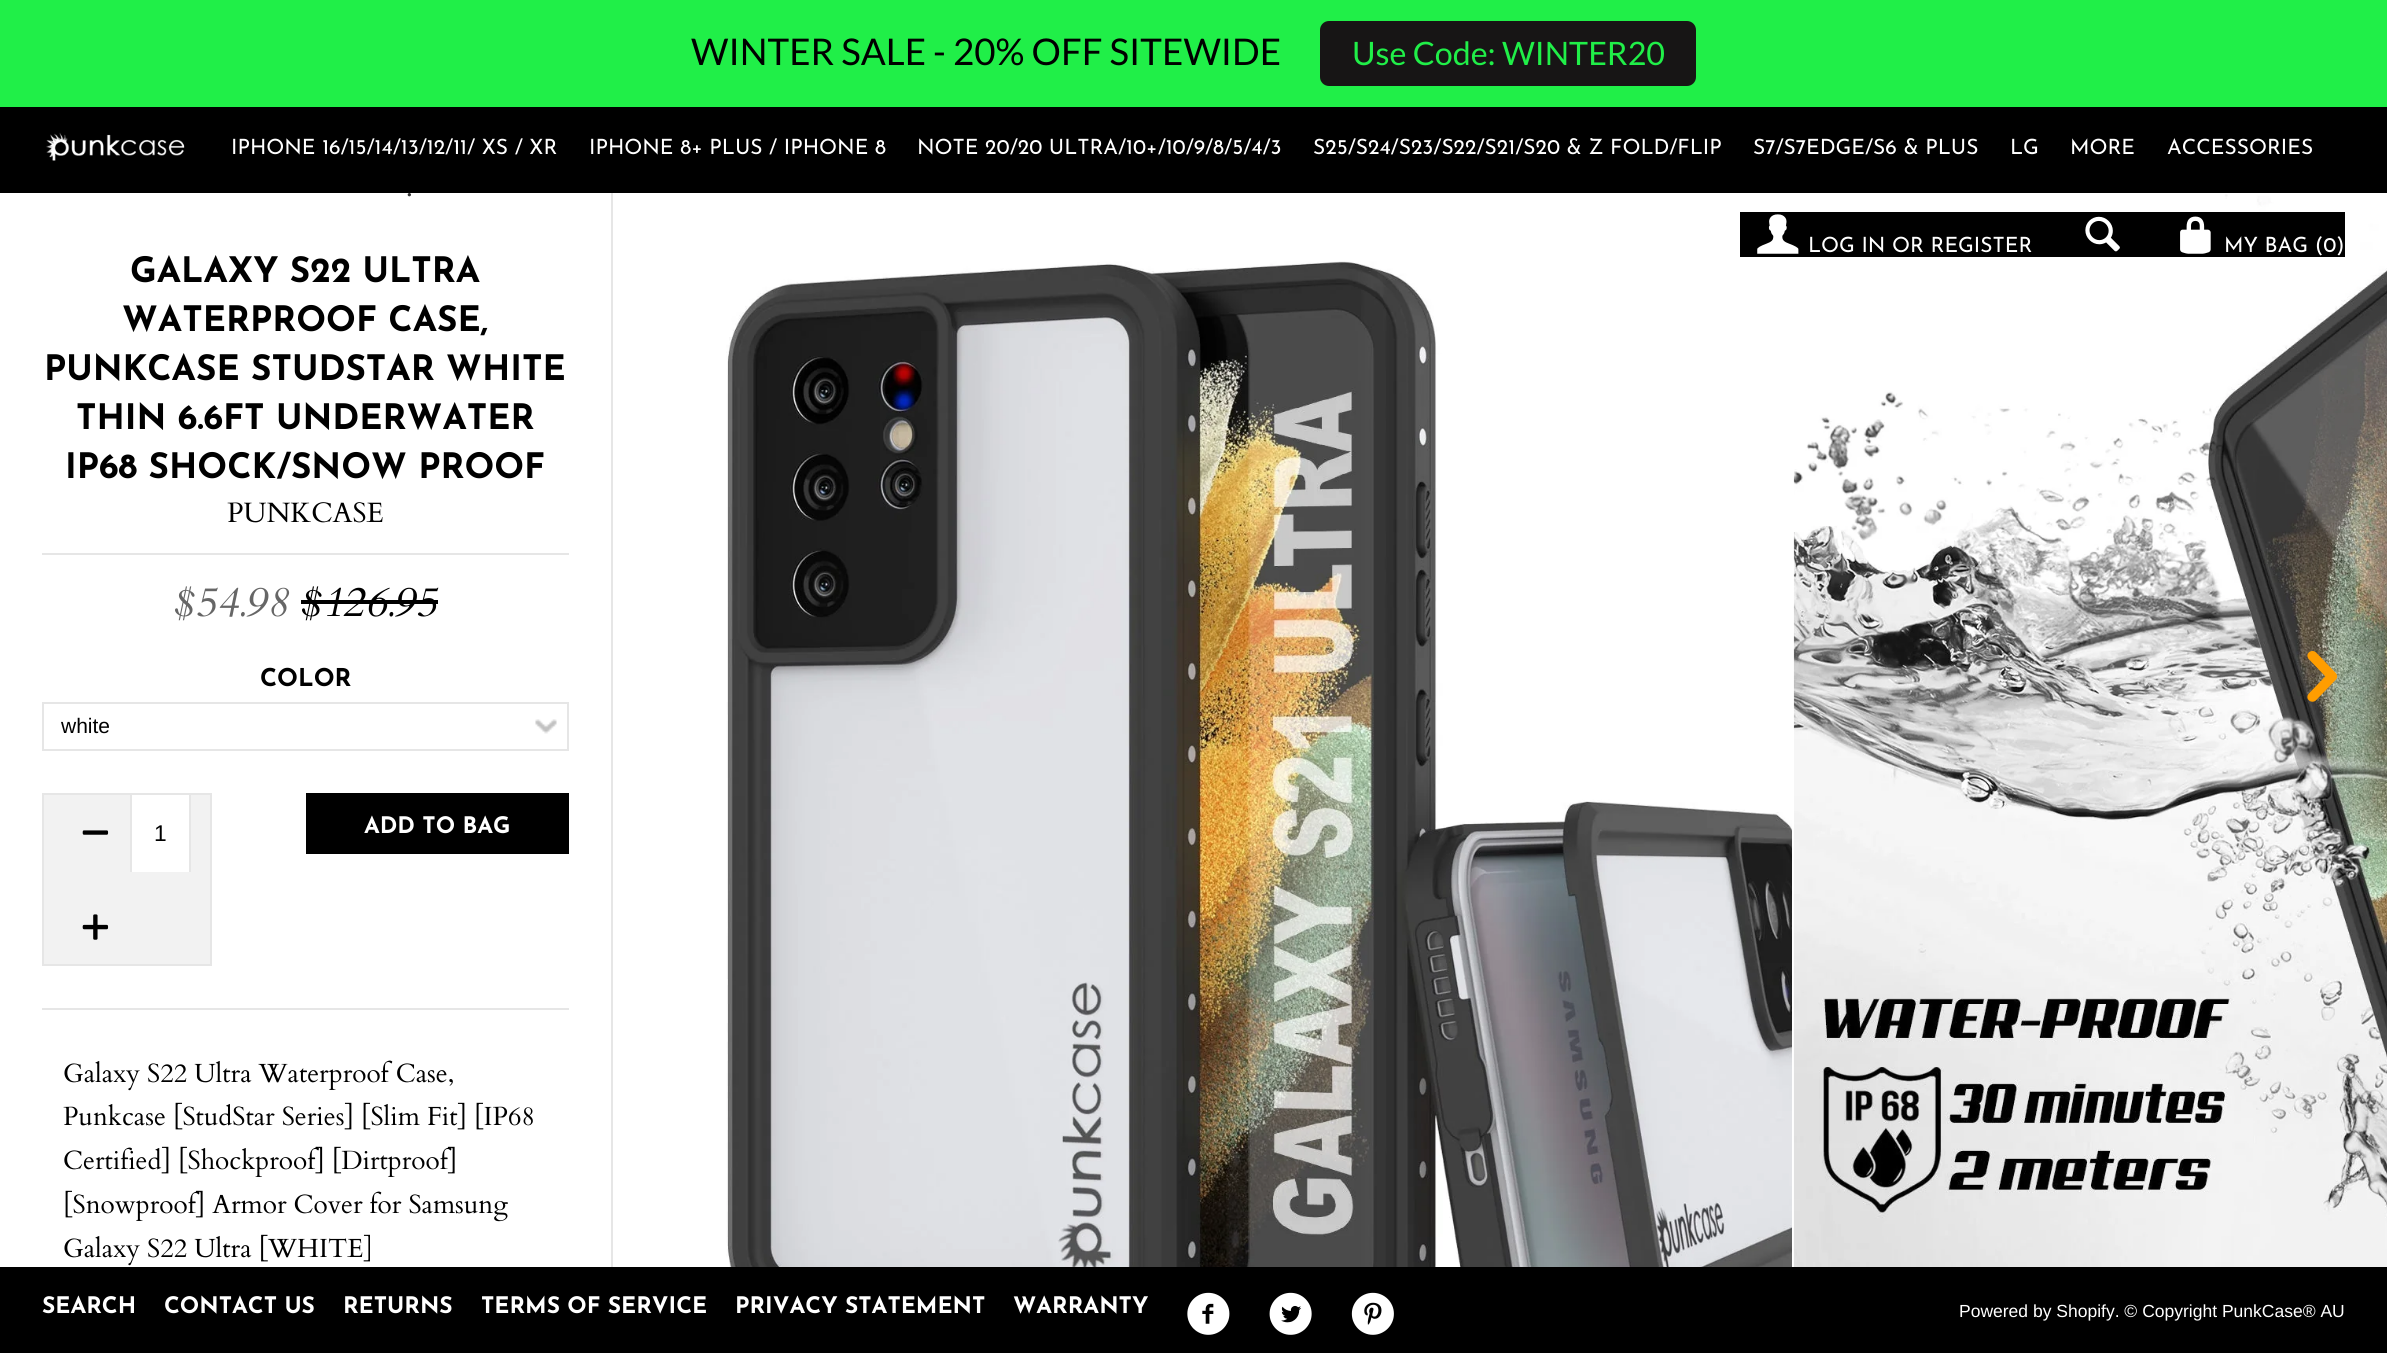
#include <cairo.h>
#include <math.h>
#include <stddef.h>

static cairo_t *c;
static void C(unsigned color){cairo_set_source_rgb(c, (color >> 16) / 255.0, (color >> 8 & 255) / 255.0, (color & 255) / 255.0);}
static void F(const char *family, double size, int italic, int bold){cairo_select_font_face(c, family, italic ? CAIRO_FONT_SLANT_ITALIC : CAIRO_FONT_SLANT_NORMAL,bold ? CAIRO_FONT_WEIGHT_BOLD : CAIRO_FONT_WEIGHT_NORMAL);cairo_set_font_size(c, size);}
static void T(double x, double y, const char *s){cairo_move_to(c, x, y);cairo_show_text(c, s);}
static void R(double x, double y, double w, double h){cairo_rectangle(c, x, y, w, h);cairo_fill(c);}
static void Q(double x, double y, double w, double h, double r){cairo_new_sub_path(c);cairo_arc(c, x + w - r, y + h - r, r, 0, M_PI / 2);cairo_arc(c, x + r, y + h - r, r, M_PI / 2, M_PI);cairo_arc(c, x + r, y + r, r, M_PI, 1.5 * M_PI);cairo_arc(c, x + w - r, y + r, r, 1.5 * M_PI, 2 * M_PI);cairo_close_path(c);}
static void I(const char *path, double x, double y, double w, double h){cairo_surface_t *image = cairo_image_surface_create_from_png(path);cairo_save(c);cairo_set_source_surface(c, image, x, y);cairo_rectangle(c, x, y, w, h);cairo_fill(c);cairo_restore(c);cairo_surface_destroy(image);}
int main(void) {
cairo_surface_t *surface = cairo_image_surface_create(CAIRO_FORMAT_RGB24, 2387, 1353);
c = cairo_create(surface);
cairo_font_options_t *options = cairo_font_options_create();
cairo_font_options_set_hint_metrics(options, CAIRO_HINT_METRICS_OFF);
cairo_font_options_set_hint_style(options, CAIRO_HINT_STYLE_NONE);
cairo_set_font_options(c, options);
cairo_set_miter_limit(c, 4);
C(0xffffff);
cairo_paint(c);
C(0x20ef48);
R(0,0,2387,107);
F("Lato",36.75,0,0);
C(0x000000);
T(691,65,"WINTER SALE - 20% OFF SITEWIDE");
C(0x171515);
Q(1320,21,376,65,9);
cairo_fill(c);
F("Lato",32.25,0,0);
C(0x20ef48);
T(1352,65,"Use Code: WINTER20");
C(0x000000);
R(0,107,2387,86);
I("1.png",46,132,139,29);
F("Josefin Sans",21,0,0);
C(0xffffff);
T(231,154,"IPHONE 16/15/14/13/12/11/ XS / XR");
T(589,154,"IPHONE 8+ PLUS / IPHONE 8");
T(917,154,"NOTE 20/20 ULTRA/10+/10/9/8/5/4/3");
T(1313,154,"S25/S24/S23/S22/S21/S20 & Z FOLD/FLIP");
T(1753,154,"S7/S7EDGE/S6 & PLUS");
T(2010,154,"LG");
T(2070,154,"MORE");
T(2167,154,"ACCESSORIES");
I("9.png",1793,194,594,1073);
C(0x000000);
R(1740,212,605,45);
I("2.png",1757,214,42,40);
C(0xffffff);
T(1808,252,"LOG IN OR REGISTER");
I("3.png",2085,216,35,36);
I("4.png",2180,216,31,38);
T(2224,252,"MY BAG (0");
T(2336,252,")");
C(0xe6e6e6);
R(611,193,2,1074);
F("Cardo",26.25,0,0);
C(0x333333);
T(406,196,".");
F("Josefin Sans",35,0,1);
C(0x000000);
T(130,282,"GALAXY S22 ULTRA");
T(122,331,"WATERPROOF CASE,");
T(44,380,"PUNKCASE STUDSTAR WHITE");
T(76,429,"THIN 6.6FT UNDERWATER");
T(65,478,"IP68 SHOCK/SNOW PROOF");
C(0xe6e6e6);
R(42,553,527,2);
F("Cardo",28,0,0);
C(0x000000);
T(227,522,"PUNKCASE");
F("Cardo",42,1,0);
C(0x666666);
T(174,616,"$54.98");
C(0x000000);
T(301,616,"$126.95");
R(301,600,137,4);
F("Josefin Sans",24.5,0,1);
T(260,686,"COLOR");
I("5.png",535,719,22,15);
cairo_rectangle(c,43,703,525,47);
C(0xe6e6e6);
cairo_stroke(c);
F("Liberation Sans",21,0,0);
C(0x000000);
T(61,733,"white");
C(0xf2f2f2);
cairo_rectangle(c,43,794,168,171);
cairo_fill_preserve(c);
C(0xe6e6e6);
cairo_stroke(c);
I("6.png",82,830,27,5);
C(0xffffff);
R(132,795,57,77);
C(0xe6e6e6);
R(189,795,2,77);
R(130,795,2,77);
F("Liberation Sans",22.75,0,0);
C(0x000000);
T(154,841,"1");
I("7.png",82,914,27,26);
R(306,793,263,61);
F("Josefin Sans",22.75,0,1);
C(0xffffff);
T(364,833,"ADD TO BAG");
C(0xe6e6e6);
R(42,1008,527,2);
F("Cardo",26.25,0,0);
C(0x000000);
T(63,1082,"Galaxy S22 Ultra Waterproof Case,");
T(63,1125,"Punkcase [StudStar Series] [Slim Fit] [IP68");
T(63,1169,"Certified] [Shockproof] [Dirtproof]");
T(63,1213,"[Snowproof] Armor Cover for Samsung");
T(63,1257,"Galaxy S22 Ultra [WHITE]");
I("8.png",726,261,1066,1006);
I("10.png",2307,651,31,51);
R(0,1267,2387,86);
F("Josefin Sans",22.75,0,1);
C(0xffffff);
T(42,1313,"SEARCH");
T(164,1313,"CONTACT US");
T(343,1313,"RETURNS");
T(481,1313,"TERMS OF SERVICE");
T(735,1313,"PRIVACY STATEMENT");
T(1013,1313,"WARRANTY");
I("11.png",1187,1292,43,43);
I("12.png",1269,1292,43,43);
I("13.png",1351,1292,43,43);
F("Liberation Sans",17.5,0,0);
T(1959,1317,"Powered by Shopify. © Copyright PunkCase® AU");
cairo_surface_write_to_png(surface, "o.png");
cairo_font_options_destroy(options);
cairo_destroy(c);
cairo_surface_destroy(surface);
return 0;
}
